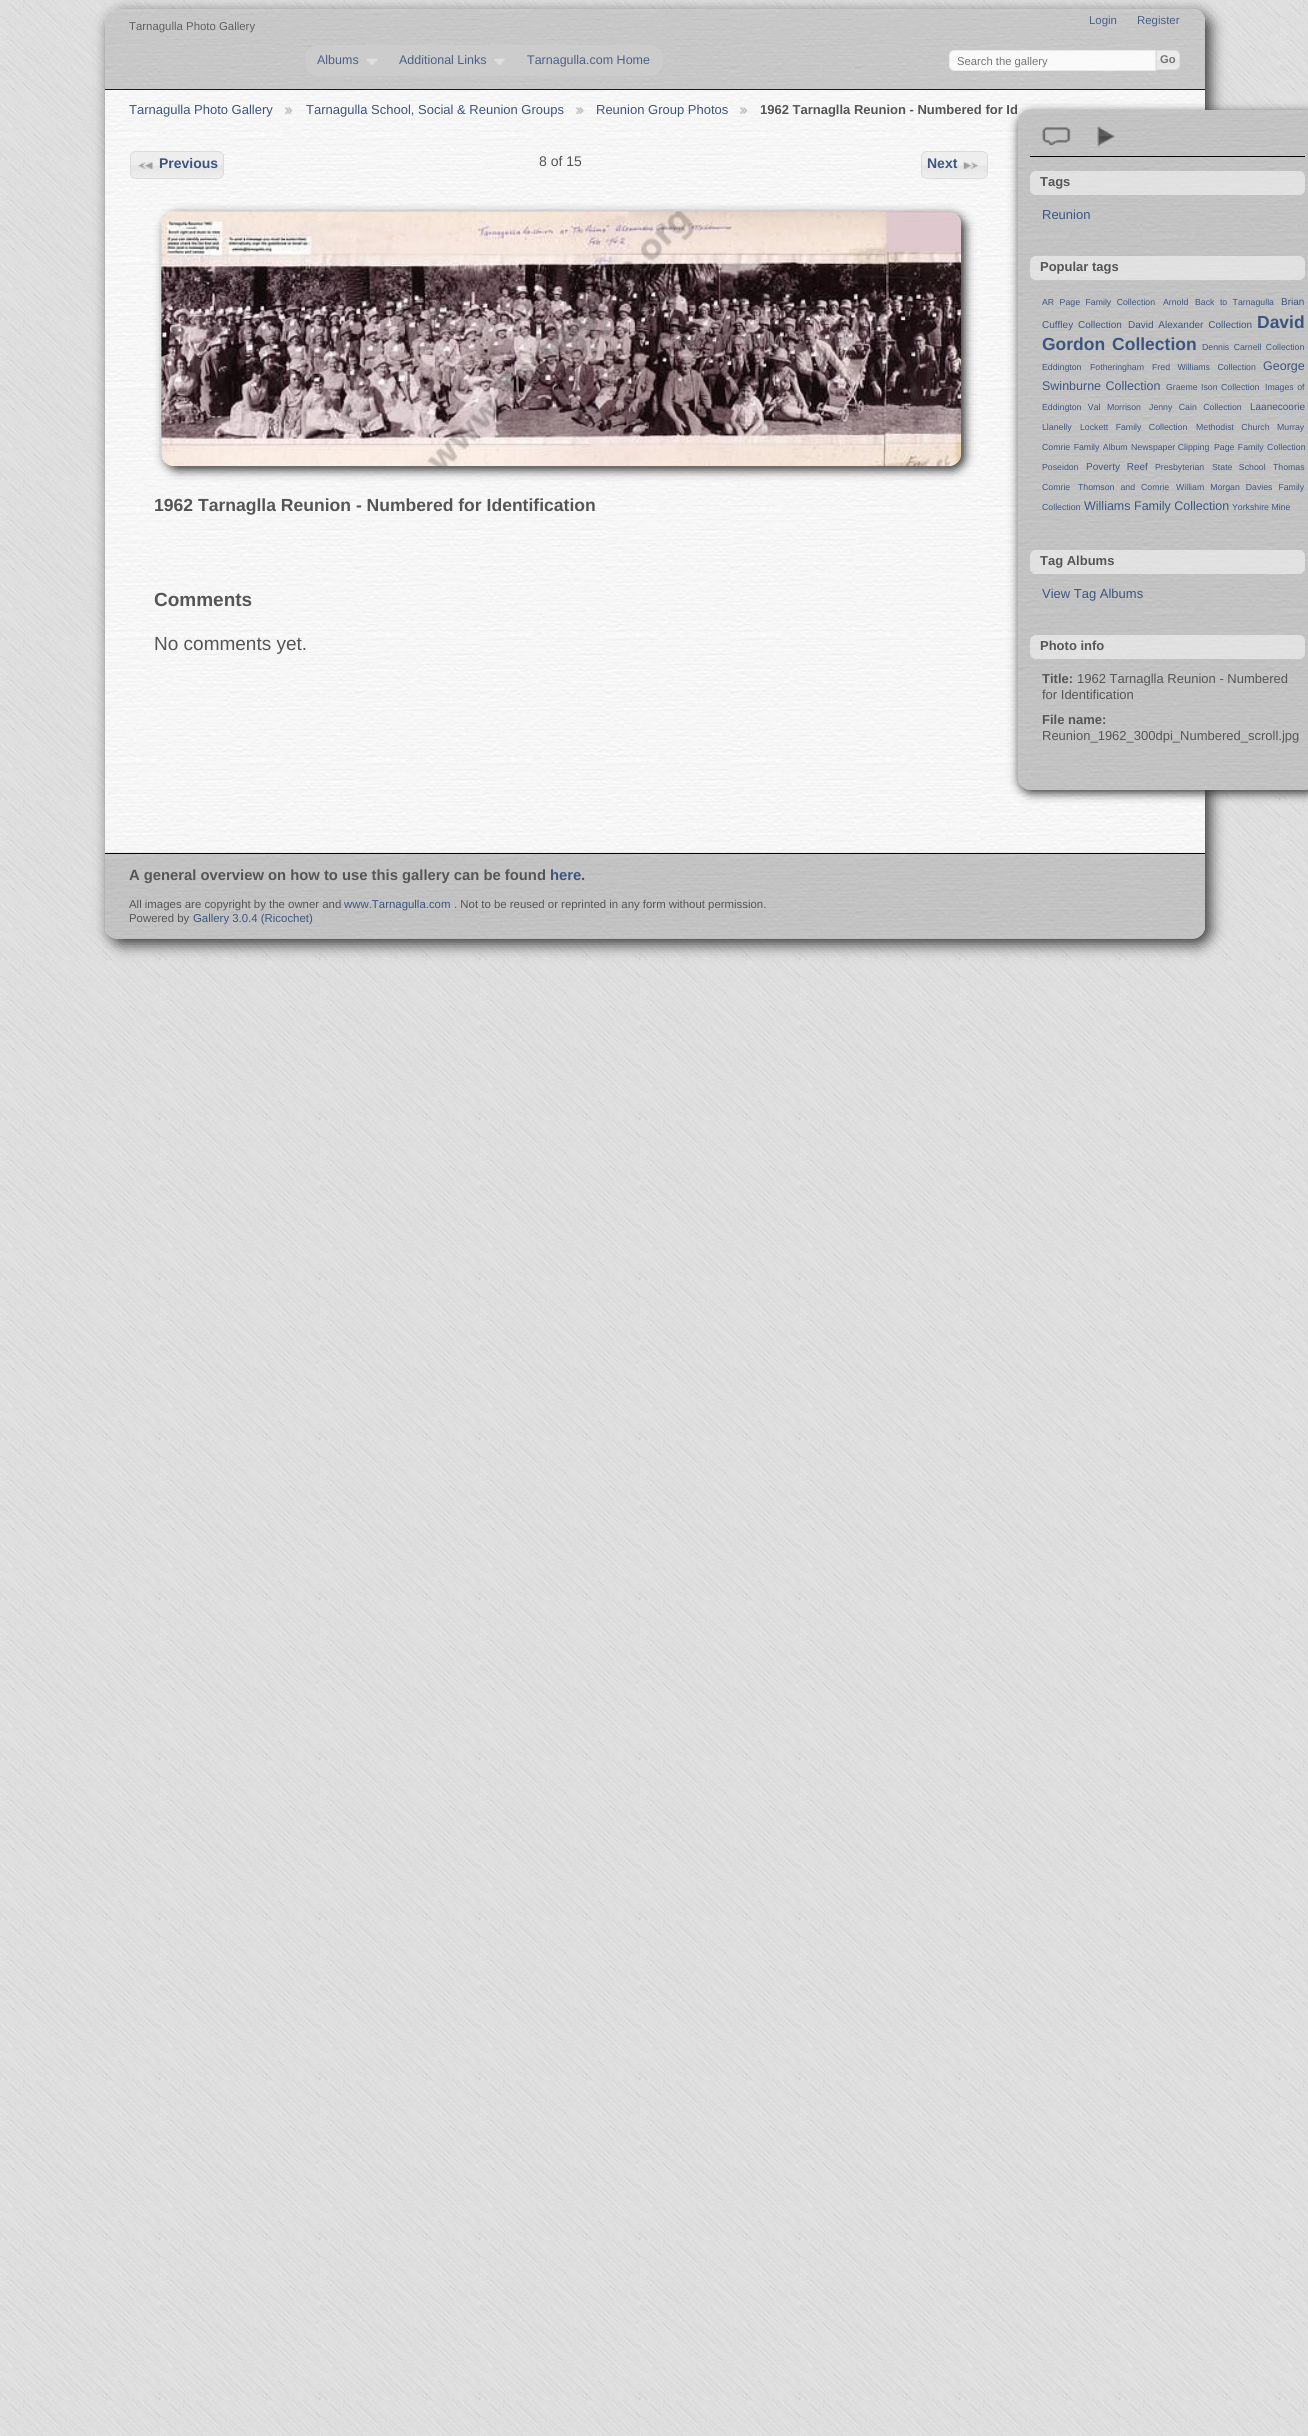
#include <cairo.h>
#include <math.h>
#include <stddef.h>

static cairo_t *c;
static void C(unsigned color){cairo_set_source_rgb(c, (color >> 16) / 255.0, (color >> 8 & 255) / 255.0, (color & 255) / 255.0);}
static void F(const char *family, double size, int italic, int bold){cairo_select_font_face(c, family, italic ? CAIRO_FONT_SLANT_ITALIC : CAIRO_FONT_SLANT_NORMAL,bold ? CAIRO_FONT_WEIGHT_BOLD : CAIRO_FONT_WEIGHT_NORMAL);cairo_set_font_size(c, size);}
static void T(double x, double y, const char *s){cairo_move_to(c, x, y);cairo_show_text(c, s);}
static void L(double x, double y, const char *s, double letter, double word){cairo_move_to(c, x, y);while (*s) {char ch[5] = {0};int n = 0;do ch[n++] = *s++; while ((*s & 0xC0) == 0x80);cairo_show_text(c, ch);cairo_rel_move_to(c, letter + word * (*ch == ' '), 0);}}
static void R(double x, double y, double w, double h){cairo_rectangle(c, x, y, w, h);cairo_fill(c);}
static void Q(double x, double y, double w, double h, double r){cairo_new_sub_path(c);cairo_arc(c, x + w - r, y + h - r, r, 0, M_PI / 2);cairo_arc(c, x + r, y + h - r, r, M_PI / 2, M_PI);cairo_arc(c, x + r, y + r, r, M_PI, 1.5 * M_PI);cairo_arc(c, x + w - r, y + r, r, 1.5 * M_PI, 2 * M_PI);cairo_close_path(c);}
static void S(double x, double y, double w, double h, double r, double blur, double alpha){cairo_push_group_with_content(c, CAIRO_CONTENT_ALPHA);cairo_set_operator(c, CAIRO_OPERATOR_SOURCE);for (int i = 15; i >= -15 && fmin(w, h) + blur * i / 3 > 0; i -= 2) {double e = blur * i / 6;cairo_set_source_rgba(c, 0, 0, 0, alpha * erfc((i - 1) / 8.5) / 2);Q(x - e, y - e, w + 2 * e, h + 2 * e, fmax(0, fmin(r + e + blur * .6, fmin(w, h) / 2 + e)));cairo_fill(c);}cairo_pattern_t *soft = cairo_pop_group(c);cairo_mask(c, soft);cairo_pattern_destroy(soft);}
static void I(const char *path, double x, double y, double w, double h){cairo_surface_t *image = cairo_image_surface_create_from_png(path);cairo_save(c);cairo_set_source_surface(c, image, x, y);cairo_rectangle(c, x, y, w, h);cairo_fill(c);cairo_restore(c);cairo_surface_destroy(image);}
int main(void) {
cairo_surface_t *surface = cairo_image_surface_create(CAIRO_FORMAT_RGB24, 1308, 2436);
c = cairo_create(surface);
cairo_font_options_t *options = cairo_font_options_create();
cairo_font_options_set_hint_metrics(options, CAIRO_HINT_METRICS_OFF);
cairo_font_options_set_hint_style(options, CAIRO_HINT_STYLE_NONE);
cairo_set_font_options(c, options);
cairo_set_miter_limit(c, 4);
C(0xffffff);
cairo_paint(c);
I("1.png",0,0,1308,2436);
C(0x333333);
S(110,14,1100,930,13,7.5,1);
I("2.png",105,8,1100,931);
I("3.png",105,9,1100,81);
cairo_set_source_rgba(c,0.02,0.02,0.02,0.9);
R(105,89,1100,1);
F("Liberation Sans",11.4,0,0);
C(0x606060);
T(129,30,"Tarnagulla Photo Gallery");
C(0x4a6087);
T(1089,24,"Login");
T(1137,24,"Register");
cairo_set_source_rgba(c,0.8,0.8,0.8,0.9);
Q(305,45,358,31,13);
cairo_fill(c);
F("Liberation Sans",12.5,0,0);
C(0x4a6087);
T(317,64,"Albums");
I("4.png",366,58,12,7);
T(399,64,"Additional Links");
I("5.png",494,58,11,7);
T(527,64,"Tarnagulla.com Home");
cairo_set_source_rgba(c,1,1,1,0.9);
cairo_new_path(c);
cairo_move_to(c,955,50);
cairo_line_to(c,1156,50);
cairo_line_to(c,1156,71);
cairo_line_to(c,955,71);
cairo_curve_to(c,951.5,71,949,68.5,949,65);
cairo_line_to(c,949,56);
cairo_curve_to(c,949,52.5,951.5,50,955,50);
cairo_close_path(c);
cairo_fill(c);
cairo_new_path(c);
cairo_move_to(c,955,50.5);
cairo_line_to(c,1155.5,50.5);
cairo_line_to(c,1155.5,70.5);
cairo_line_to(c,955,70.5);
cairo_curve_to(c,952,70.5,949.5,68,949.5,65);
cairo_line_to(c,949.5,56);
cairo_curve_to(c,949.5,53,952,50.5,955,50.5);
cairo_close_path(c);
cairo_set_source_rgba(c,0.91,0.91,0.91,0.9);
cairo_set_line_width(c,1);
cairo_stroke(c);
F("Liberation Sans",11.25,0,0);
C(0x757575);
T(957,65,"Search the gallery");
cairo_set_source_rgba(c,0.902,0.902,0.902,0.9);
cairo_new_path(c);
cairo_move_to(c,1156,50);
cairo_line_to(c,1174,50);
cairo_curve_to(c,1177.5,50,1180,52.5,1180,56);
cairo_line_to(c,1180,64);
cairo_curve_to(c,1180,67.5,1177.5,70,1174,70);
cairo_line_to(c,1156,70);
cairo_close_path(c);
cairo_fill(c);
I("6.png",1157,50,23,20);
cairo_new_path(c);
cairo_move_to(c,1156.5,50.5);
cairo_line_to(c,1174,50.5);
cairo_curve_to(c,1177,50.5,1179.5,53,1179.5,56);
cairo_line_to(c,1179.5,64);
cairo_curve_to(c,1179.5,67,1177,69.5,1174,69.5);
cairo_line_to(c,1156.5,69.5);
cairo_close_path(c);
cairo_set_source_rgba(c,0.859,0.859,0.859,0.9);
cairo_stroke(c);
F("Liberation Sans",11.25,0,1);
C(0x757575);
T(1160,63,"Go");
F("Liberation Sans",13,0,0);
C(0x3c5580);
T(129,114,"Tarnagulla Photo Gallery");
I("7.png",285,107,8,7);
T(306,114,"Tarnagulla School, Social & Reunion Groups");
I("8.png",576,107,8,7);
T(596,114,"Reunion Group Photos");
I("9.png",740,107,8,7);
F("Liberation Sans",13,0,1);
C(0x555555);
T(760,114,"1962 Tarnaglla Reunion - Numbered for Id");
I("10.png",130,151,94,28);
Q(130.5,151.5,93,27,5.5);
C(0xdbdbdb);
cairo_stroke(c);
I("11.png",138,162,15,7);
F("Liberation Sans",14,0,1);
C(0x3c5580);
T(159,168,"Previous");
F("Liberation Sans",14,0,0);
C(0x555555);
T(539,166,"8 of 15");
I("12.png",921,151,66,28);
Q(921.5,151.5,66,27,5.5);
C(0xdbdbdb);
cairo_stroke(c);
F("Liberation Sans",14,0,1);
C(0x3c5580);
T(927,168,"Next");
I("13.png",963,162,15,7);
C(0x333333);
S(165,215,800,255,13,5,1);
I("14.png",161,211,801,256);
F("Liberation Sans",17.55,0,1);
C(0x555555);
T(154,511,"1962 Tarnaglla Reunion - Numbered for Identification");
F("Liberation Sans",19,0,1);
T(154,606,"Comments");
F("Liberation Sans",19,0,0);
T(154,650,"No comments yet.");
C(0x333333);
S(1019,113,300,680,13,5,1);
I("15.png",1017,110,291,680);
C(0x050505);
R(1030,156,275,1);
I("16.png",1042,127,29,19);
I("17.png",1097,126,18,21);
cairo_set_source_rgba(c,1,1,1,0.5);
Q(1030,171,275,24,6);
cairo_fill(c);
F("Liberation Sans",13,0,1);
C(0x555555);
T(1040,186,"Tags");
F("Liberation Sans",13,0,0);
C(0x3c5580);
T(1042,219,"Reunion");
cairo_set_source_rgba(c,1,1,1,0.5);
Q(1030,256,275,24,6);
cairo_fill(c);
F("Liberation Sans",13,0,1);
C(0x555555);
T(1040,271,"Popular tags");
F("Liberation Sans",8.75,0,0);
C(0x3c5580);
L(1042,305,"AR Page Family Collection",0,3);
T(1163,305,"Arnold");
L(1195,305,"Back to Tarnagulla",0,3);
F("Liberation Sans",10,0,0);
T(1281,305,"Brian");
L(1042,328,"Cuffley Collection",0,2);
L(1128,328,"David Alexander Collection",0,2);
F("Liberation Sans",17.5,0,1);
T(1257,328,"David");
L(1042,350,"Gordon Collection",0,2);
F("Liberation Sans",8.75,0,0);
L(1202,350,"Dennis Carnell Collection",0,2);
T(1042,370,"Eddington");
T(1090,370,"Fotheringham");
L(1152,370,"Fred Williams Collection",0,5);
F("Liberation Sans",12.5,0,0);
T(1263,370,"George");
L(1042,390,"Swinburne Collection",0,1);
F("Liberation Sans",8.75,0,0);
L(1166,390,"Graeme Ison Collection",0,1);
L(1265,390,"Images of",0,1);
L(1042,410,"Eddington Val Morrison",0,4);
L(1149,410,"Jenny Cain Collection",0,4);
F("Liberation Sans",10,0,0);
T(1250,410,"Laanecoorie");
F("Liberation Sans",8.75,0,0);
T(1042,430,"Llanelly");
L(1080,430,"Lockett Family Collection",0,5);
L(1196,430,"Methodist Church",0,5);
T(1277,430,"Murray");
L(1042,450,"Comrie Family Album",0,1);
T(1131,450,"Newspaper Clipping");
L(1214,450,"Page Family Collection",0,1);
T(1042,470,"Poseidon");
F("Liberation Sans",10,0,0);
L(1086,470,"Poverty Reef",0,4);
F("Liberation Sans",8.75,0,0);
T(1155,470,"Presbyterian");
L(1212,470,"State School",0,4);
T(1273,470,"Thomas");
T(1042,490,"Comrie");
L(1078,490,"Thomson and Comrie",0,3.5);
L(1176,490,"William Morgan Davies Family",0,3.5);
T(1042,510,"Collection");
F("Liberation Sans",12.5,0,0);
T(1084,510,"Williams Family Collection");
F("Liberation Sans",8.75,0,0);
T(1232,510,"Yorkshire Mine");
cairo_set_source_rgba(c,1,1,1,0.5);
Q(1030,550,275,24,6);
cairo_fill(c);
F("Liberation Sans",13,0,1);
C(0x555555);
T(1040,565,"Tag Albums");
F("Liberation Sans",13,0,0);
C(0x3c5580);
T(1042,598,"View Tag Albums");
cairo_set_source_rgba(c,1,1,1,0.5);
Q(1030,635,275,24,6);
cairo_fill(c);
F("Liberation Sans",13,0,1);
C(0x555555);
T(1040,650,"Photo info");
T(1042,683,"Title:");
F("Liberation Sans",13,0,0);
T(1077,683,"1962 Tarnaglla Reunion - Numbered");
T(1042,699,"for Identification");
F("Liberation Sans",13,0,1);
T(1042,724,"File name:");
F("Liberation Sans",13,0,0);
T(1042,740,"Reunion_1962_300dpi_Numbered_scroll.jpg");
I("18.png",105,852,1100,87);
C(0x050505);
R(105,853,1100,1);
F("Liberation Sans",14.8,0,1);
C(0x555555);
T(129,880,"A general overview on how to use this gallery can be found");
C(0x3c5580);
T(550,880,"here");
C(0x555555);
T(581,880,".");
F("Liberation Sans",11.4,0,0);
T(129,908,"All images are copyright by the owner and");
C(0x3c5580);
T(344,908,"www.Tarnagulla.com");
C(0x555555);
T(454,908,". Not to be reused or reprinted in any form without permission.");
T(129,922,"Powered by");
C(0x3c5580);
T(193,922,"Gallery 3.0.4 (Ricochet)");
cairo_surface_write_to_png(surface, "o.png");
cairo_font_options_destroy(options);
cairo_destroy(c);
cairo_surface_destroy(surface);
return 0;
}
